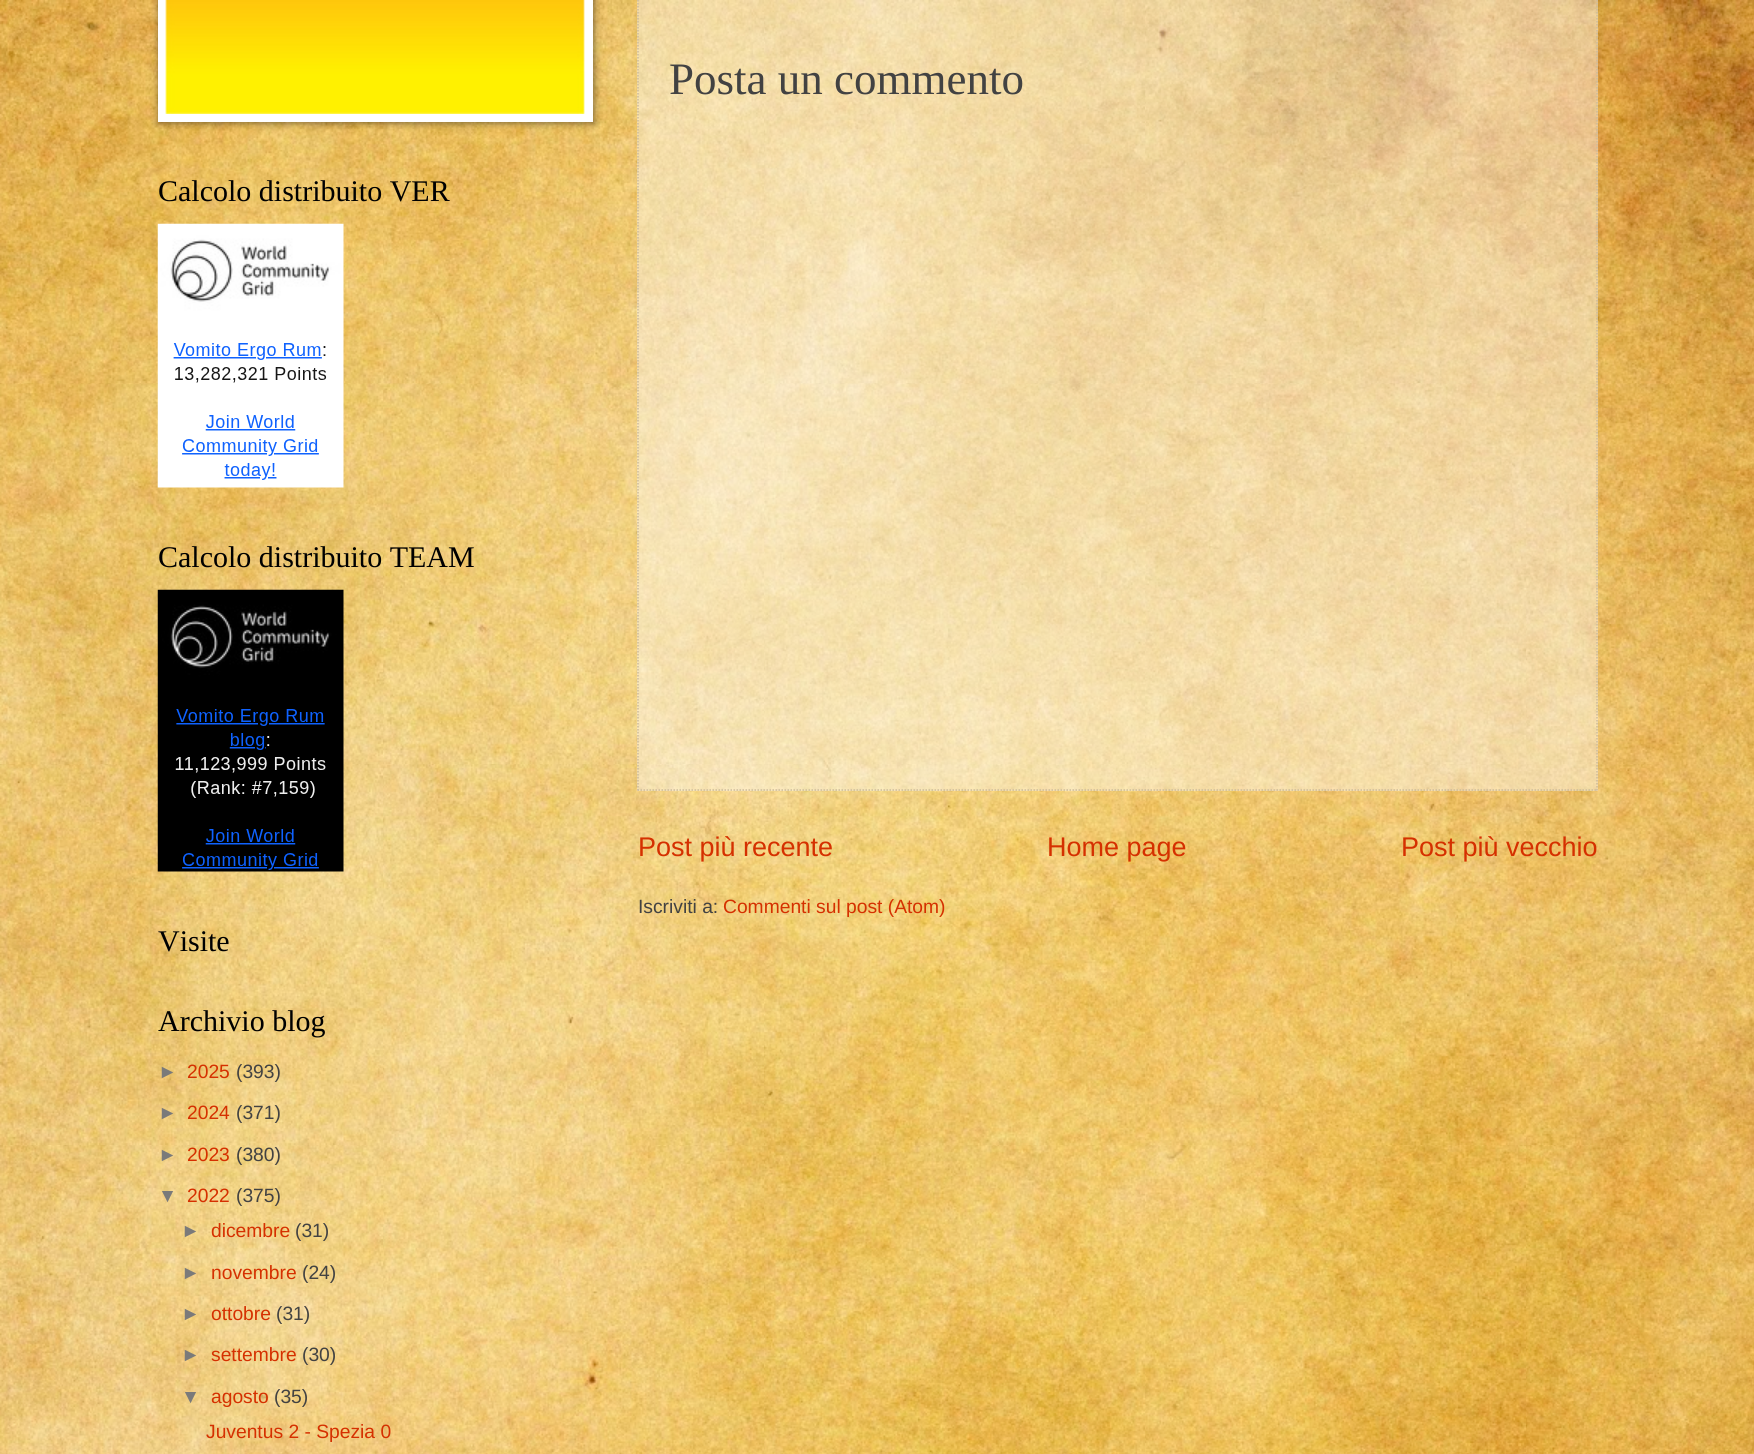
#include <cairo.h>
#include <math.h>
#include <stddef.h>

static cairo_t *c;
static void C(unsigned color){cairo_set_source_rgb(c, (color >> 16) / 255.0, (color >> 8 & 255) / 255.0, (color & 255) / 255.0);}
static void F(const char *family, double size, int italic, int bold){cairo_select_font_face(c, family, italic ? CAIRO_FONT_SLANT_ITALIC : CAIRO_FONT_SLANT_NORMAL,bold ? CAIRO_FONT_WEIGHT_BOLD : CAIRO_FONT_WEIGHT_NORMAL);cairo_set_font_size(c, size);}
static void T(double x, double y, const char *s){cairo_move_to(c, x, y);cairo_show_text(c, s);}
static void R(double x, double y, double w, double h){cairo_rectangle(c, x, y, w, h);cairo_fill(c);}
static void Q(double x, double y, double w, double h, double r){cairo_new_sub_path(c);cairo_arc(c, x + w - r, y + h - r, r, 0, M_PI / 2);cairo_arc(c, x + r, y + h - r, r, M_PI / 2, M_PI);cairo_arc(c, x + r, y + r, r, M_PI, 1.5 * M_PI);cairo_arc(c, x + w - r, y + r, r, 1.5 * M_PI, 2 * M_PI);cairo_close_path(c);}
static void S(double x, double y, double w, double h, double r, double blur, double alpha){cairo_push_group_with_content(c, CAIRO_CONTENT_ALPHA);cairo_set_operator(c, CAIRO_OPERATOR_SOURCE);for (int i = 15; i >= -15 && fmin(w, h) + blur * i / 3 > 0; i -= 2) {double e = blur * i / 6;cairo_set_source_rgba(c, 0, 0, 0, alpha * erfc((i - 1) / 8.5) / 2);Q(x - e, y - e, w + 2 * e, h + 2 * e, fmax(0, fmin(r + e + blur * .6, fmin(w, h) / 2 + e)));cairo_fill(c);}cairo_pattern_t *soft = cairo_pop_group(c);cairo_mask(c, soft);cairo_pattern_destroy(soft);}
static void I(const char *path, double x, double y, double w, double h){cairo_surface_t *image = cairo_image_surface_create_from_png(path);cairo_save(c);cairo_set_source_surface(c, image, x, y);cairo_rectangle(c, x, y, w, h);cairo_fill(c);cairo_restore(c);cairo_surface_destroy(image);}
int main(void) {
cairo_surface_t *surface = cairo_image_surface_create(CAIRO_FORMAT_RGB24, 1754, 1454);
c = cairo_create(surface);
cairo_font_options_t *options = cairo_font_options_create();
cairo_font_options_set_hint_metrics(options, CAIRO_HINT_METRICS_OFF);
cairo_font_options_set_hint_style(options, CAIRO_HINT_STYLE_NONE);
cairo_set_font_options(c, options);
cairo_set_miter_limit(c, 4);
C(0xffffff);
cairo_paint(c);
I("1.png",0,0,1754,1454);
C(0x000000);
S(159,-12,435,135,0,4,.5);
C(0xffffff);
R(158,0,435,122);
I("2.png",165,0,420,114);
F("Liberation Serif",30,0,0);
C(0x000000);
T(158,201,"Calcolo distribuito VER");
I("3.png",157,223,187,265);
T(158,567,"Calcolo distribuito TEAM");
I("4.png",157,589,187,283);
T(158,951,"Visite");
T(158,1031,"Archivio blog");
F("Liberation Sans",19.25,0,0);
C(0x7a7a7a);
T(158,1078,"►");
F("Arimo",19.25,0,0);
C(0xd53000);
T(187,1078,"2025");
C(0x424242);
T(236,1078,"(393)");
F("Liberation Sans",19.25,0,0);
C(0x7a7a7a);
T(158,1119,"►");
F("Arimo",19.25,0,0);
C(0xd53000);
T(187,1119,"2024");
C(0x424242);
T(236,1119,"(371)");
F("Liberation Sans",19.25,0,0);
C(0x7a7a7a);
T(158,1161,"►");
F("Arimo",19.25,0,0);
C(0xd53000);
T(187,1161,"2023");
C(0x424242);
T(236,1161,"(380)");
F("Liberation Sans",19.25,0,0);
C(0x7a7a7a);
T(158,1202,"▼");
F("Arimo",19.25,0,0);
C(0xd53000);
T(187,1202,"2022");
C(0x424242);
T(236,1202,"(375)");
F("Liberation Sans",19.25,0,0);
C(0x7a7a7a);
T(181,1237,"►");
F("Arimo",19.25,0,0);
C(0xd53000);
T(211,1237,"dicembre");
C(0x424242);
T(295,1237,"(31)");
F("Liberation Sans",19.25,0,0);
C(0x7a7a7a);
T(181,1279,"►");
F("Arimo",19.25,0,0);
C(0xd53000);
T(211,1279,"novembre");
C(0x424242);
T(302,1279,"(24)");
F("Liberation Sans",19.25,0,0);
C(0x7a7a7a);
T(181,1320,"►");
F("Arimo",19.25,0,0);
C(0xd53000);
T(211,1320,"ottobre");
C(0x424242);
T(276,1320,"(31)");
F("Liberation Sans",19.25,0,0);
C(0x7a7a7a);
T(181,1361,"►");
F("Arimo",19.25,0,0);
C(0xd53000);
T(211,1361,"settembre");
C(0x424242);
T(302,1361,"(30)");
F("Liberation Sans",19.25,0,0);
C(0x7a7a7a);
T(181,1403,"▼");
F("Arimo",19.25,0,0);
C(0xd53000);
T(211,1403,"agosto");
C(0x424242);
T(274,1403,"(35)");
C(0xd53000);
T(206,1438,"Juventus 2 - Spezia 0");
cairo_set_source_rgba(c,1,1,1,0.4);
R(637,0,961,791);
cairo_new_path(c);
cairo_move_to(c,1597,-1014);
cairo_line_to(c,1597,790.5);
C(0xcdbb9b);
cairo_set_line_width(c,1.5);
cairo_set_dash(c,(double[]){1.5,1.5},2,0);
cairo_stroke(c);
cairo_new_path(c);
cairo_move_to(c,637.5,790);
cairo_line_to(c,1597.5,790);
cairo_stroke(c);
cairo_new_path(c);
cairo_move_to(c,638,-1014);
cairo_line_to(c,638,790.5);
cairo_stroke(c);
F("Liberation Serif",45,0,0);
C(0x424242);
T(669,94,"Posta un commento");
F("Arimo",27,0,0);
C(0xd53000);
T(638,856,"Post più recente");
T(1047,856,"Home page");
T(1401,856,"Post più vecchio");
F("Arimo",19.25,0,0);
C(0x424242);
T(638,913,"Iscriviti a:");
C(0xd53000);
T(723,913,"Commenti sul post (Atom)");
cairo_surface_write_to_png(surface, "o.png");
cairo_font_options_destroy(options);
cairo_destroy(c);
cairo_surface_destroy(surface);
return 0;
}
